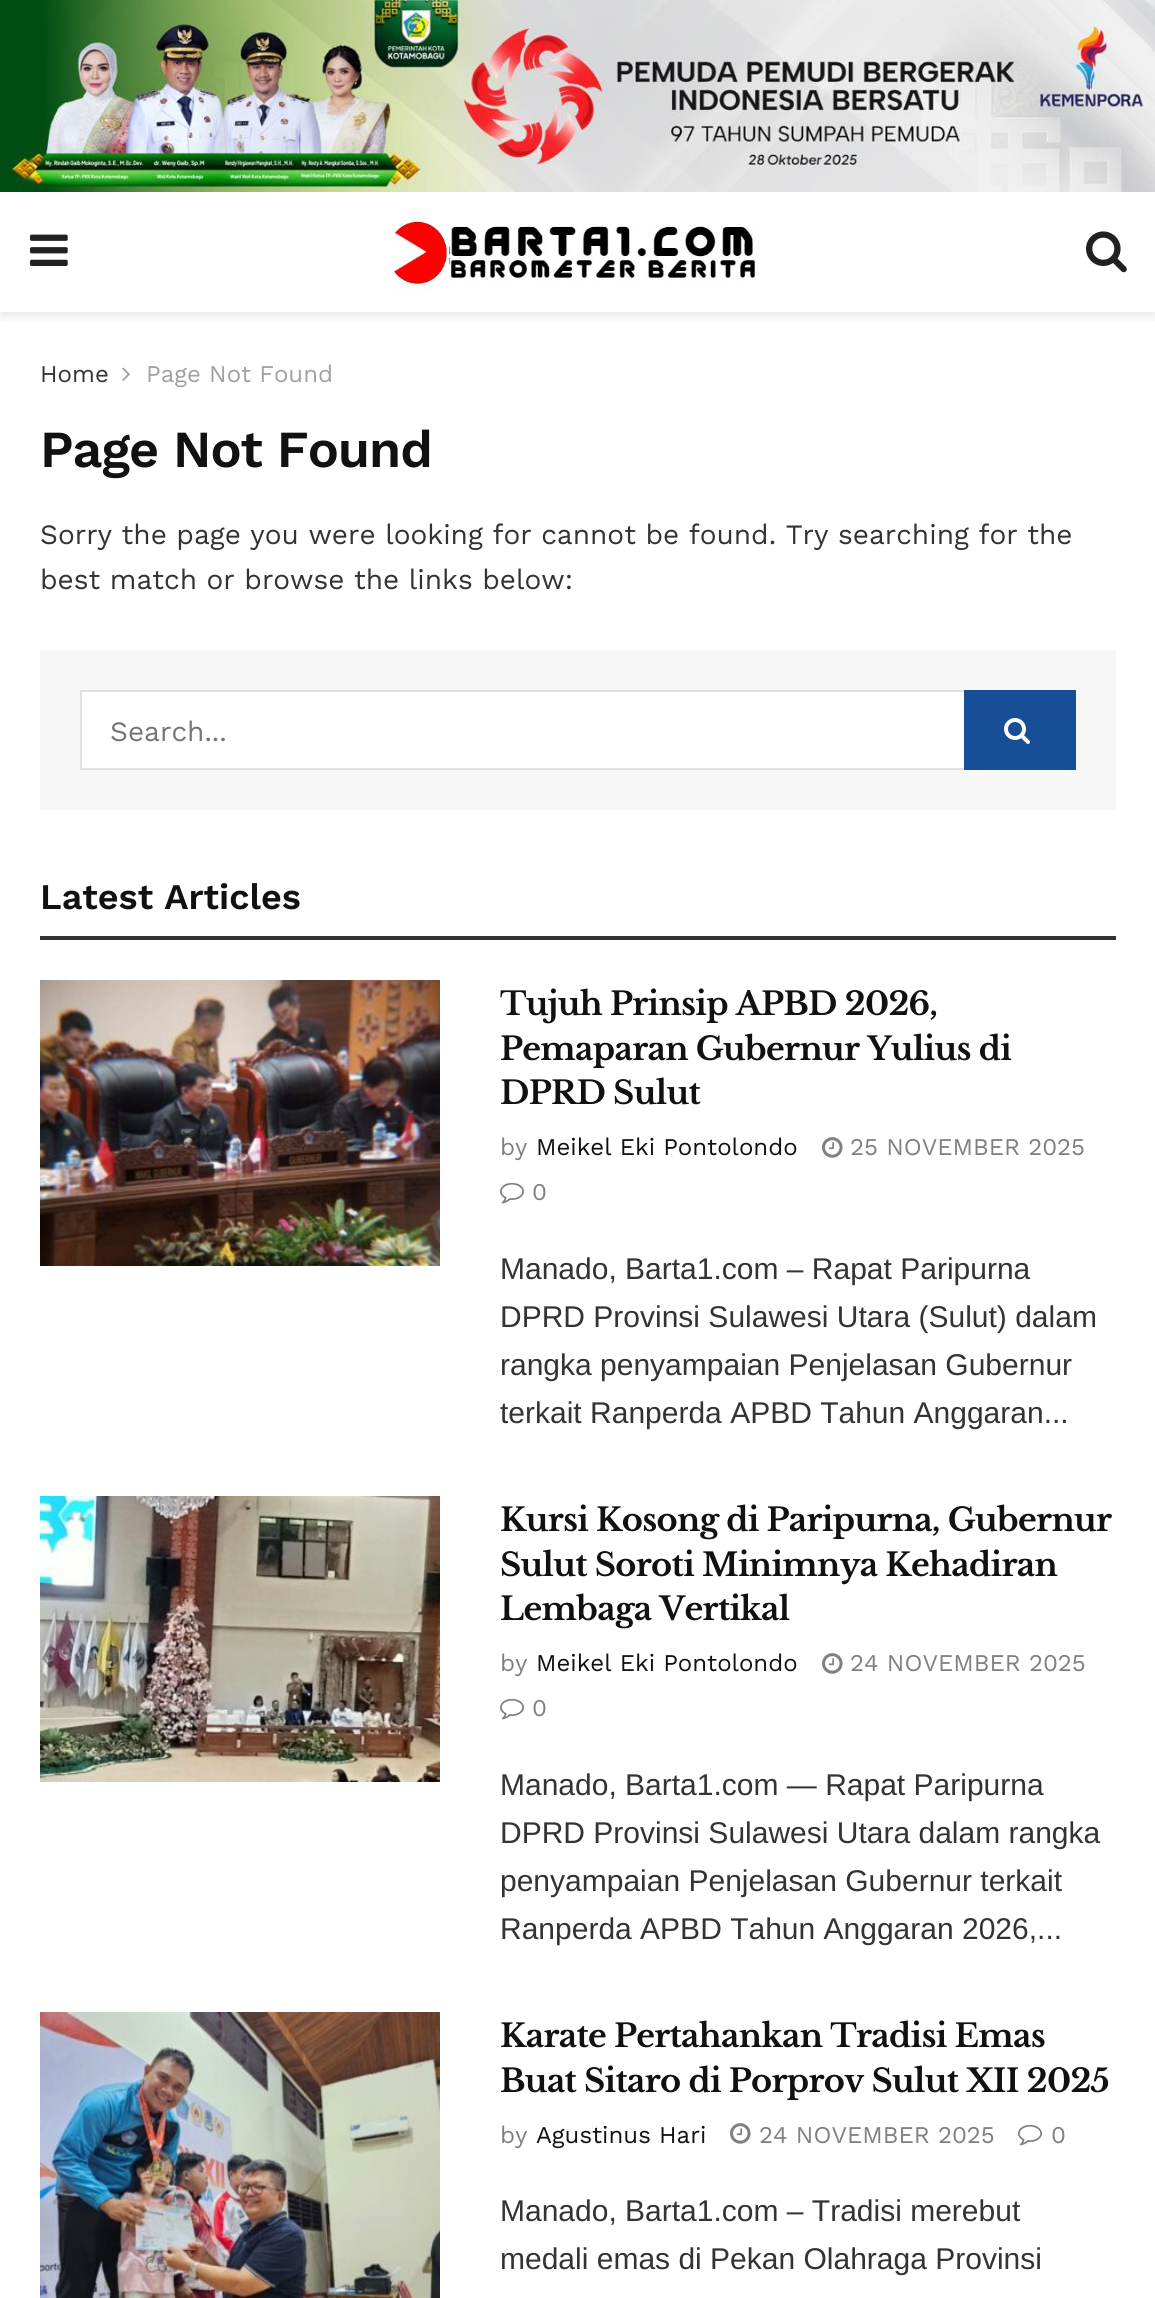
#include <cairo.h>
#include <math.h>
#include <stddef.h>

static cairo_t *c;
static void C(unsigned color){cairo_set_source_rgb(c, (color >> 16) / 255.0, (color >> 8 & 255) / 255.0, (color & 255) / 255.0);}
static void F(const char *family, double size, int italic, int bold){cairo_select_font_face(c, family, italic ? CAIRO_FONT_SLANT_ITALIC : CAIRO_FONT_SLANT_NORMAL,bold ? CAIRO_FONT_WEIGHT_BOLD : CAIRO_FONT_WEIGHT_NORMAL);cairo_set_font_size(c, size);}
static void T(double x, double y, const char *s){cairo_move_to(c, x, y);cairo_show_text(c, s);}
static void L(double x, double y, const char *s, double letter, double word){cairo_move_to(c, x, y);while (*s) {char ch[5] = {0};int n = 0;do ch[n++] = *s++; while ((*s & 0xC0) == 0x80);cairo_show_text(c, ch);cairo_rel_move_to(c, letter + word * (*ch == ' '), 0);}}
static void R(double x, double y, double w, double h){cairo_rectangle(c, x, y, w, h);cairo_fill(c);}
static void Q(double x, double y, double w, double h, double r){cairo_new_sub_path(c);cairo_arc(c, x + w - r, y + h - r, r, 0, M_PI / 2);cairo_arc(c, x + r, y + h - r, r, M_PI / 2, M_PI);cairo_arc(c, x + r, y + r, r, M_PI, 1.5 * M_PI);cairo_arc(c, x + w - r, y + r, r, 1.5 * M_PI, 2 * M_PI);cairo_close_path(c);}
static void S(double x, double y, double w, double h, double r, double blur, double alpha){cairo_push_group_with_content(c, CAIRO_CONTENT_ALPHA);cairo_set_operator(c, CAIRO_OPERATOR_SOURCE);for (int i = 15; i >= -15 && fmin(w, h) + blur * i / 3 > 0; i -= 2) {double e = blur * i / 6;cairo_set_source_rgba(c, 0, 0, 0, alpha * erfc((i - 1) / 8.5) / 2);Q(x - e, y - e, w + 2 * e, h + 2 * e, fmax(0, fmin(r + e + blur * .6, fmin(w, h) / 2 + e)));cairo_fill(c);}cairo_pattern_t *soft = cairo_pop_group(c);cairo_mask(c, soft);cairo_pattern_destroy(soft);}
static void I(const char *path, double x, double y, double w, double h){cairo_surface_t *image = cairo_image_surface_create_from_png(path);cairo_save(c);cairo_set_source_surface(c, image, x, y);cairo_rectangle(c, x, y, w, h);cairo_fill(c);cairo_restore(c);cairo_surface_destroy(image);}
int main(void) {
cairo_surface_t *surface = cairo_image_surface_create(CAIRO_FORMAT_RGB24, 1155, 2298);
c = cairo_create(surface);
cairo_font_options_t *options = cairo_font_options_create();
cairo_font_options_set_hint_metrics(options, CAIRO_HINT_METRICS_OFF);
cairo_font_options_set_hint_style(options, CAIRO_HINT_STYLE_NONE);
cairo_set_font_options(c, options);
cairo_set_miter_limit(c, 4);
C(0xffffff);
cairo_paint(c);
cairo_save(c);
cairo_rectangle(c,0,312,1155,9);
cairo_clip(c);
C(0x000000);
S(0,196,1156,120,0,6,.1);
cairo_restore(c);
I("1.png",0,0,1155,192);
I("2.png",30,234,38,32);
I("3.png",386,212,370,80);
I("4.png",1086,231,41,42);
F("Work Sans",24,0,0);
C(0x333333);
T(40,382,"Home");
I("5.png",122,367,8,14);
C(0xa0a0a0);
T(146,382,"Page Not Found");
F("Work Sans SemiBold",52,0,0);
C(0x111111);
L(40,467,"Page Not Found",-1,0);
F("Work Sans",28,0,0);
C(0x333333);
T(40,544,"Sorry the page you were looking for cannot be found. Try searching for the");
T(40,589,"best match or browse the links below:");
C(0xf7f7f7);
R(40,650,1076,160);
C(0xffffff);
R(82,692,882,76);
cairo_rectangle(c,81,691,994,78);
C(0xe0e0e0);
cairo_stroke(c);
C(0x757575);
T(110,741,"Search...");
C(0x174e96);
R(964,690,112,80);
I("6.png",1004,718,26,26);
C(0x333333);
R(40,936,1076,4);
F("Work Sans SemiBold",36,0,0);
C(0x111111);
T(40,909,"Latest Articles");
I("7.png",40,980,400,286);
F("Libre Baskerville",32,0,1);
L(500,1015,"Tujuh Prinsip APBD 2026,",-.65,0);
L(500,1060,"Pemaparan Gubernur Yulius di",-.65,0);
L(500,1104,"DPRD Sulut",-.65,0);
F("Work Sans",24,0,0);
C(0x808080);
T(500,1155,"by");
C(0x111111);
T(536,1155,"Meikel Eki Pontolondo");
I("8.png",822,1137,21,21);
C(0x808080);
T(850,1155,"25 NOVEMBER 2025");
I("9.png",500,1182,24,22);
T(532,1200,"0");
F("Liberation Sans",30,0,0);
C(0x333333);
T(500,1279,"Manado, Barta1.com – Rapat Paripurna");
T(500,1327,"DPRD Provinsi Sulawesi Utara (Sulut) dalam");
T(500,1375,"rangka penyampaian Penjelasan Gubernur");
T(500,1423,"terkait Ranperda APBD Tahun Anggaran...");
I("10.png",40,1496,400,286);
F("Libre Baskerville",32,0,1);
C(0x111111);
L(500,1531,"Kursi Kosong di Paripurna, Gubernur",-.65,0);
L(500,1576,"Sulut Soroti Minimnya Kehadiran",-.65,0);
L(500,1620,"Lembaga Vertikal",-.65,0);
F("Work Sans",24,0,0);
C(0x808080);
T(500,1671,"by");
C(0x111111);
T(536,1671,"Meikel Eki Pontolondo");
I("8.png",822,1653,21,21);
C(0x808080);
T(850,1671,"24 NOVEMBER 2025");
I("9.png",500,1698,24,22);
T(532,1716,"0");
F("Liberation Sans",30,0,0);
C(0x333333);
T(500,1795,"Manado, Barta1.com — Rapat Paripurna");
T(500,1843,"DPRD Provinsi Sulawesi Utara dalam rangka");
T(500,1891,"penyampaian Penjelasan Gubernur terkait");
T(500,1939,"Ranperda APBD Tahun Anggaran 2026,...");
I("11.png",40,2012,400,286);
F("Libre Baskerville",32,0,1);
C(0x111111);
L(500,2047,"Karate Pertahankan Tradisi Emas",-.65,0);
L(500,2092,"Buat Sitaro di Porprov Sulut XII 2025",-.65,0);
F("Work Sans",24,0,0);
C(0x808080);
T(500,2143,"by");
C(0x111111);
T(536,2143,"Agustinus Hari");
I("8.png",730,2123,21,21);
C(0x808080);
T(759,2143,"24 NOVEMBER 2025");
I("9.png",1018,2124,24,22);
T(1051,2143,"0");
F("Liberation Sans",30,0,0);
C(0x333333);
T(500,2221,"Manado, Barta1.com – Tradisi merebut");
T(500,2269,"medali emas di Pekan Olahraga Provinsi");
cairo_surface_write_to_png(surface, "o.png");
cairo_font_options_destroy(options);
cairo_destroy(c);
cairo_surface_destroy(surface);
return 0;
}
